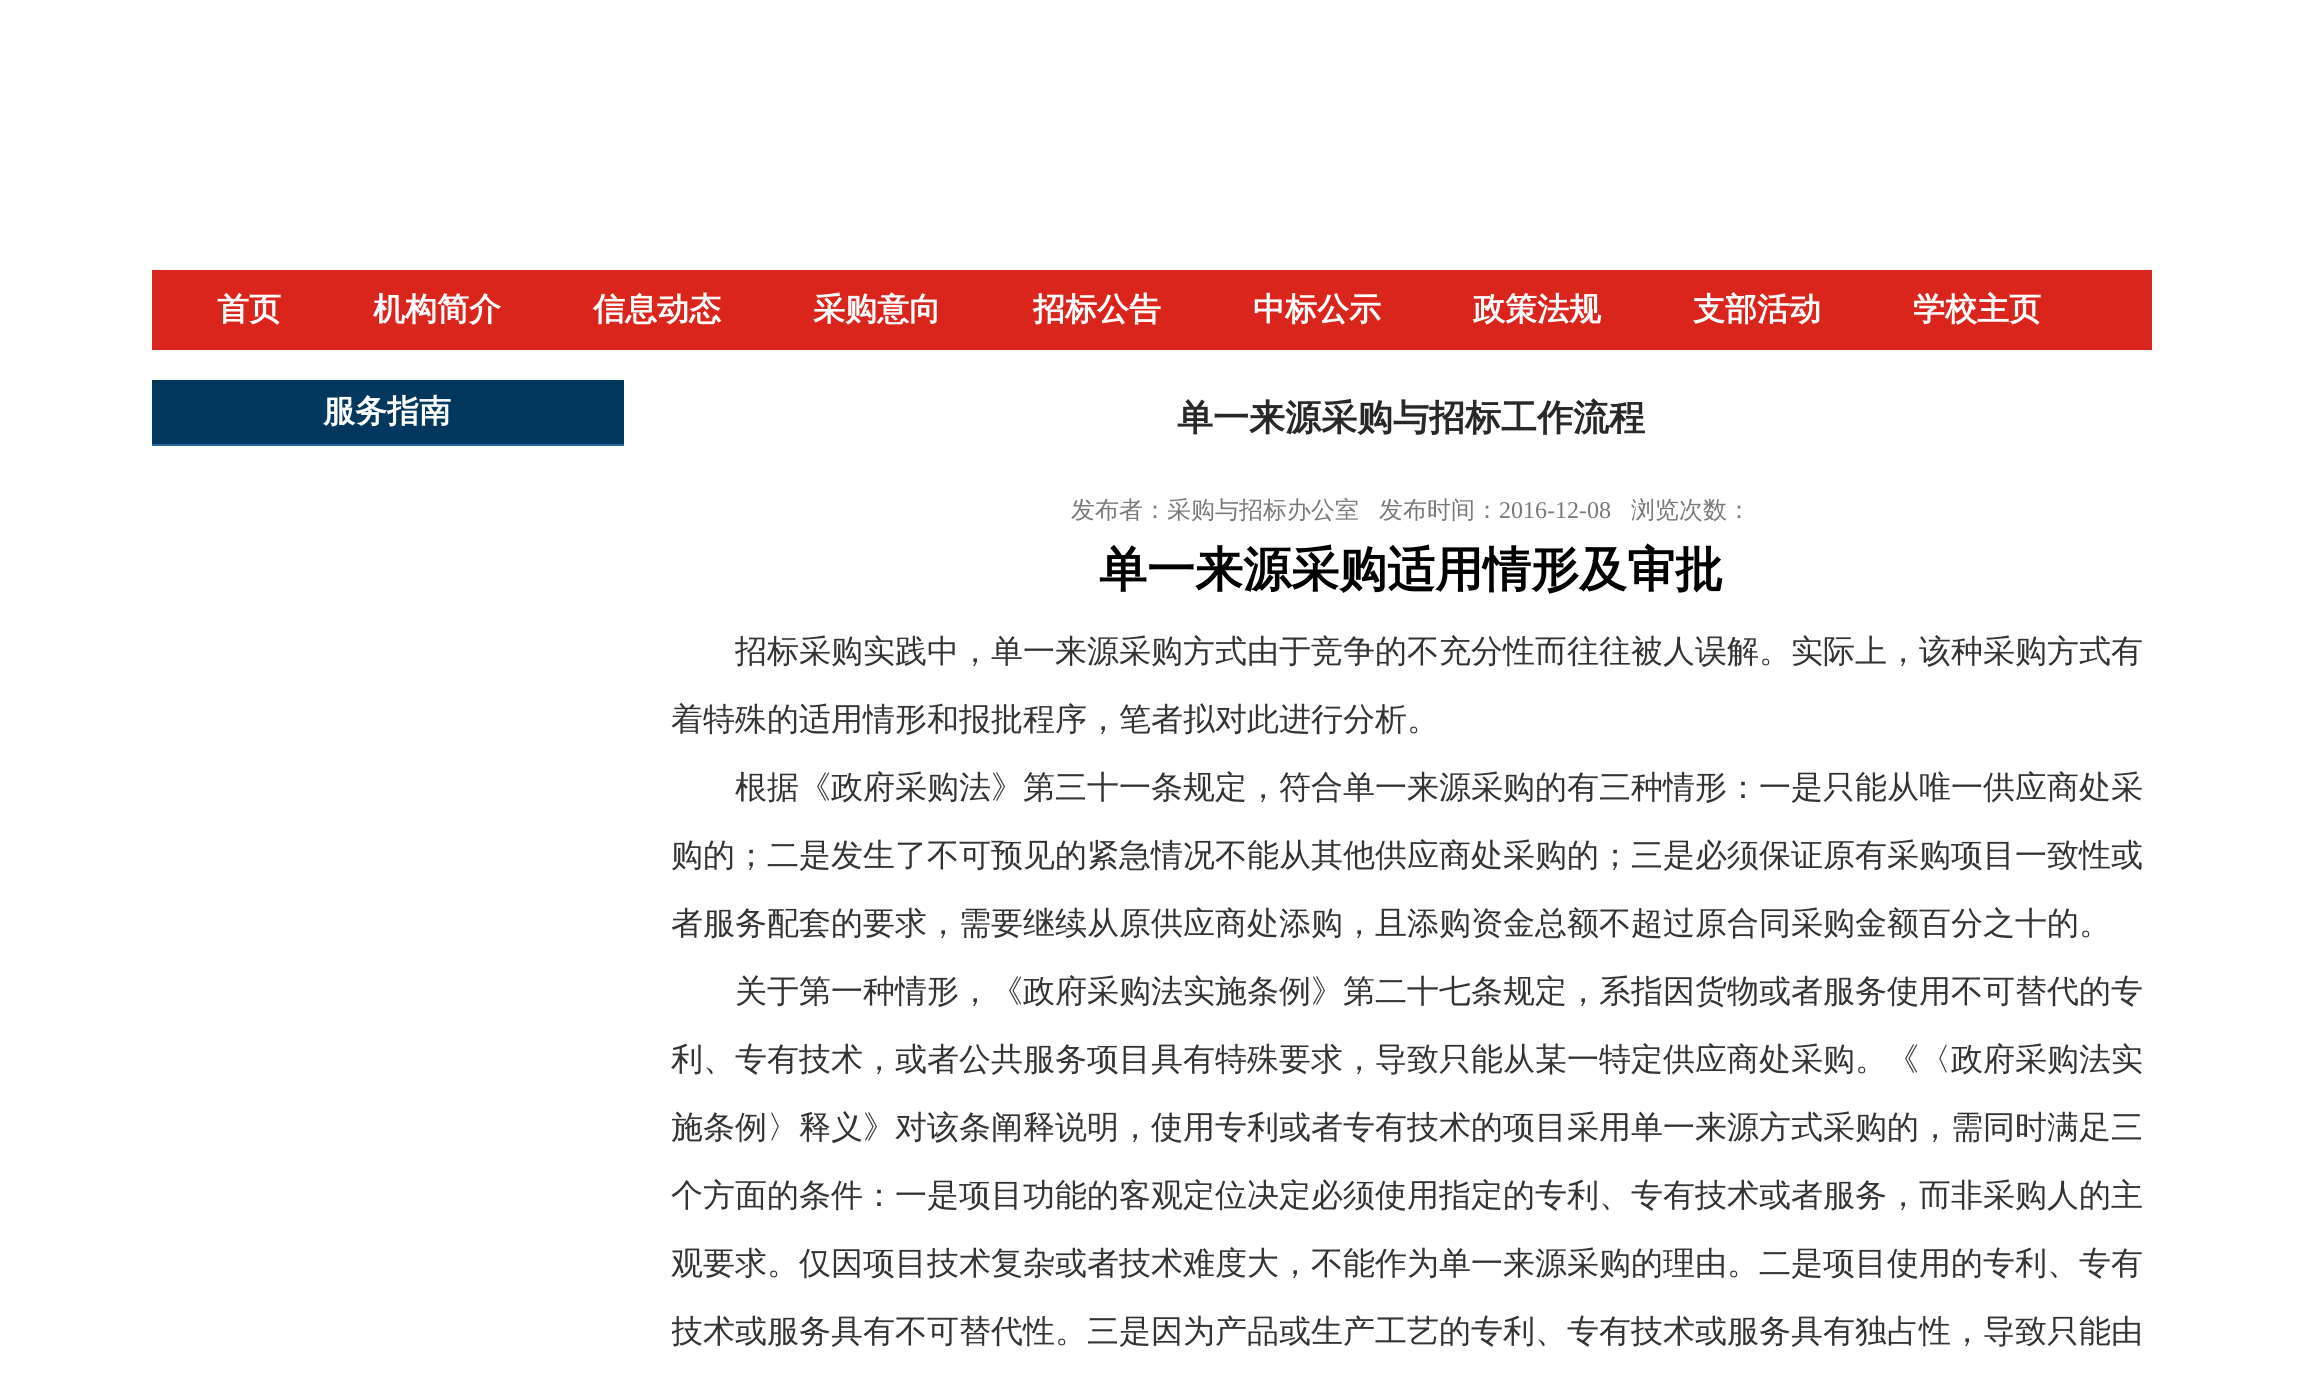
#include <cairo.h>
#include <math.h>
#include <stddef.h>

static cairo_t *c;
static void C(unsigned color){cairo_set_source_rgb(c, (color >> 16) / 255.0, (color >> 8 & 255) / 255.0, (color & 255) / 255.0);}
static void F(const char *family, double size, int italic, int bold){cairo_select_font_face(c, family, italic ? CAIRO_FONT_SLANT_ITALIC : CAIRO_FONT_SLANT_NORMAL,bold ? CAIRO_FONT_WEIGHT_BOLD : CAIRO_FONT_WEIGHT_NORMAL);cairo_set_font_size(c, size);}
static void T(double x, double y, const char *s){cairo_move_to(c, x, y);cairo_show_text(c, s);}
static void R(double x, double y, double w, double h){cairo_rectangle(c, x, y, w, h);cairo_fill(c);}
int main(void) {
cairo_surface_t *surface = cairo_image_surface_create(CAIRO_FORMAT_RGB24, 2302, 1395);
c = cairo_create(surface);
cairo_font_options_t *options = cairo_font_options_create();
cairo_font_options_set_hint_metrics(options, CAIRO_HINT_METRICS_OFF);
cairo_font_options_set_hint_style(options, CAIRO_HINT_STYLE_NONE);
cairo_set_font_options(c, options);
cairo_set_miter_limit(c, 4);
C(0xffffff);
cairo_paint(c);
C(0xda251c);
R(152,270,2000,80);
F("WenQuanYi Zen Hei",32,0,1);
C(0xffffff);
T(217,320,"首页");
T(373,320,"机构简介");
T(593,320,"信息动态");
T(813,320,"采购意向");
T(1033,320,"招标公告");
T(1253,320,"中标公示");
T(1473,320,"政策法规");
T(1693,320,"支部活动");
T(1913,320,"学校主页");
C(0x02375e);
R(152,380,472,64);
C(0xffffff);
T(323,422,"服务指南");
C(0x2867a0);
R(152,444,472,2);
F("WenQuanYi Zen Hei",36,0,1);
C(0x282828);
T(1177,430,"单一来源采购与招标工作流程");
F("WenQuanYi Zen Hei Medium",24,0,0);
C(0x787878);
T(1071,518,"发布者：采购与招标办公室");
T(1379,518,"发布时间：");
F("Liberation Serif",24,0,0);
T(1499,518,"2016-12-08");
F("WenQuanYi Zen Hei Medium",24,0,0);
T(1631,518,"浏览次数：");
F("WenQuanYi Zen Hei",48,0,1);
C(0x000000);
T(1099,586,"单一来源采购适用情形及审批");
F("WenQuanYi Zen Hei Medium",32,0,0);
C(0x333333);
T(735,662,"招标采购实践中，单一来源采购方式由于竞争的不充分性而往往被人误解。实际上，该种采购方式有");
T(671,730,"着特殊的适用情形和报批程序，笔者拟对此进行分析。");
T(735,798,"根据《政府采购法》第三十一条规定，符合单一来源采购的有三种情形：一是只能从唯一供应商处采");
T(671,866,"购的；二是发生了不可预见的紧急情况不能从其他供应商处采购的；三是必须保证原有采购项目一致性或");
T(671,934,"者服务配套的要求，需要继续从原供应商处添购，且添购资金总额不超过原合同采购金额百分之十的。");
T(735,1002,"关于第一种情形，《政府采购法实施条例》第二十七条规定，系指因货物或者服务使用不可替代的专");
T(671,1070,"利、专有技术，或者公共服务项目具有特殊要求，导致只能从某一特定供应商处采购。《〈政府采购法实");
cairo_save(c);
cairo_rectangle(c,672,542,1480,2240);
cairo_clip(c);
T(671,1138,"施条例〉释义》对该条阐释说明，使用专利或者专有技术的项目采用单一来源方式采购的，需同时满足三");
cairo_restore(c);
T(671,1206,"个方面的条件：一是项目功能的客观定位决定必须使用指定的专利、专有技术或者服务，而非采购人的主");
T(671,1274,"观要求。仅因项目技术复杂或者技术难度大，不能作为单一来源采购的理由。二是项目使用的专利、专有");
cairo_save(c);
cairo_rectangle(c,672,542,1480,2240);
cairo_clip(c);
T(671,1342,"技术或服务具有不可替代性。三是因为产品或生产工艺的专利、专有技术或服务具有独占性，导致只能由");
cairo_restore(c);
cairo_surface_write_to_png(surface, "o.png");
cairo_font_options_destroy(options);
cairo_destroy(c);
cairo_surface_destroy(surface);
return 0;
}
